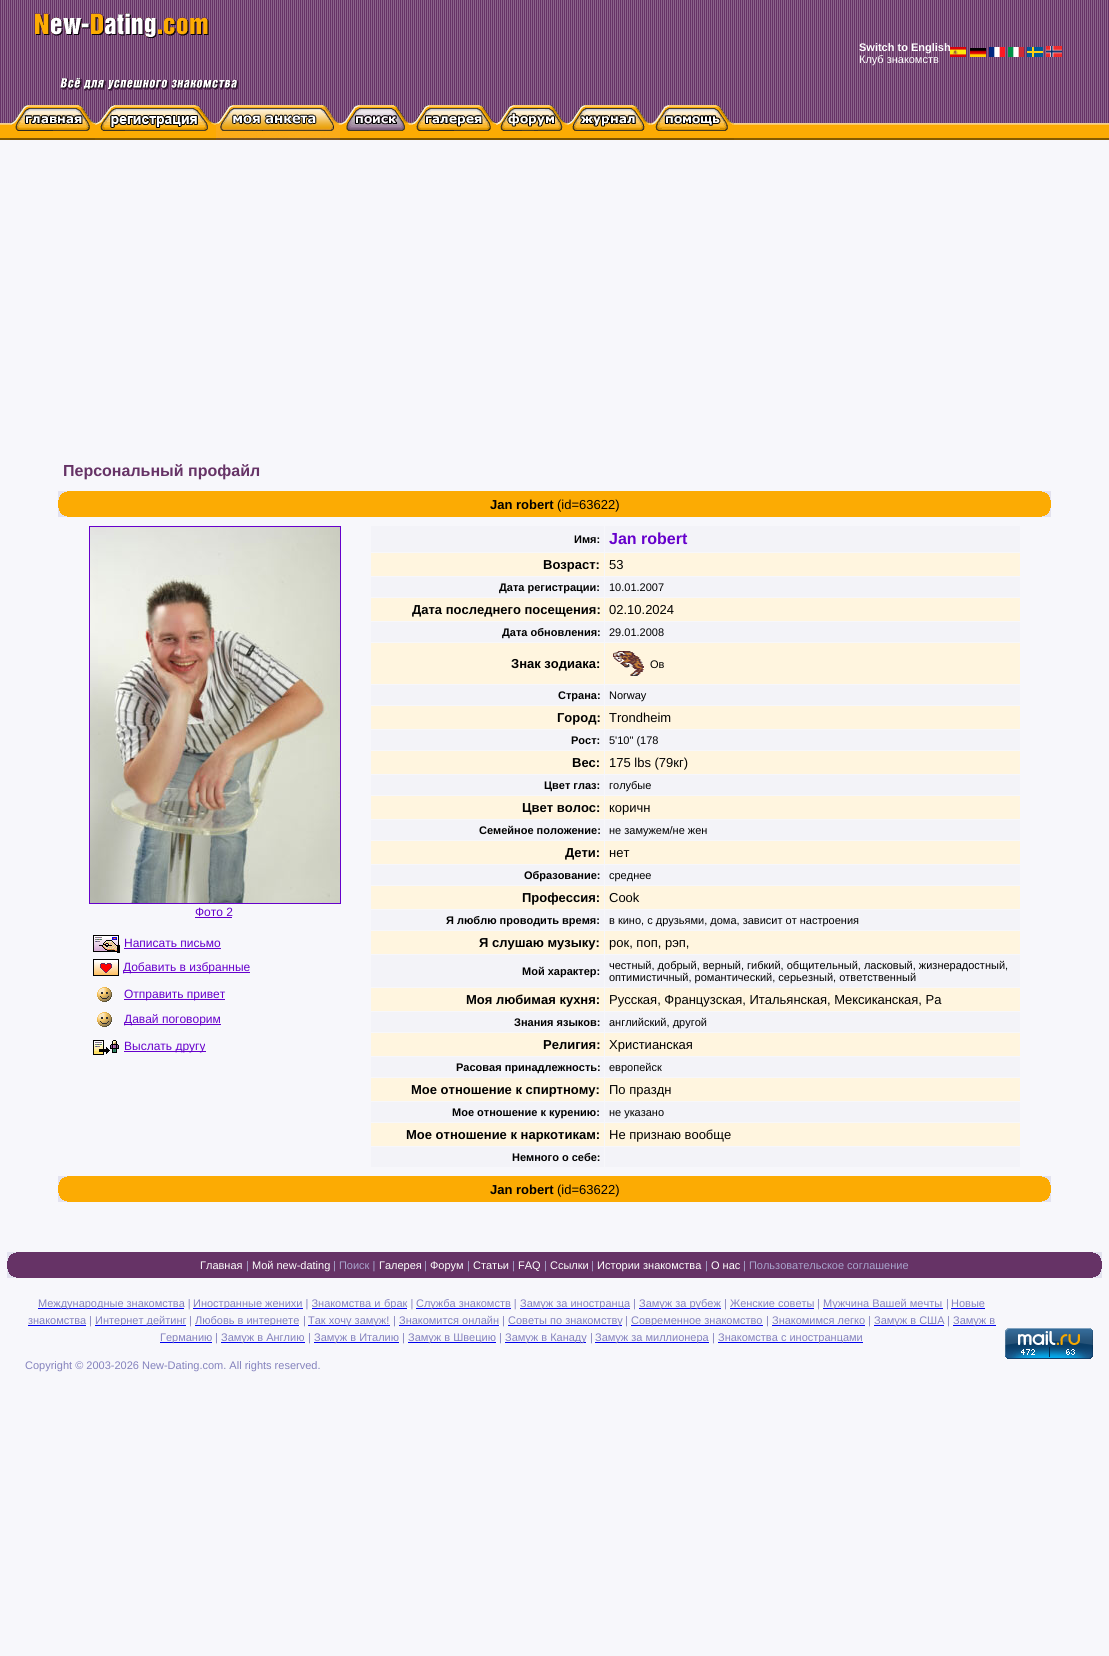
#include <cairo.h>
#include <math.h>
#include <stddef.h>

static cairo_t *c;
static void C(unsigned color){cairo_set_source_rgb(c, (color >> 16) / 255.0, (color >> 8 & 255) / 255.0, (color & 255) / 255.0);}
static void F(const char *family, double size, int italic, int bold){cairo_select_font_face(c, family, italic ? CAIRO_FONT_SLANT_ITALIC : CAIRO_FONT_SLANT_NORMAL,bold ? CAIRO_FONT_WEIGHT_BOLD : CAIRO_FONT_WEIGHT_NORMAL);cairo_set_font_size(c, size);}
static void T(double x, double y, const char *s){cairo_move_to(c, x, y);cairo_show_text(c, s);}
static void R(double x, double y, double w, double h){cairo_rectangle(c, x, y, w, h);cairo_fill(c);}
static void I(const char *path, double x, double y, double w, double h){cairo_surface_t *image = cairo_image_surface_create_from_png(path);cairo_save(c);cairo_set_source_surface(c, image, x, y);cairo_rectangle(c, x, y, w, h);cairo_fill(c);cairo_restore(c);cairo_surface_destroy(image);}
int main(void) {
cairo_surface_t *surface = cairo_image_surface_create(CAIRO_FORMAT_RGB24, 1109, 1656);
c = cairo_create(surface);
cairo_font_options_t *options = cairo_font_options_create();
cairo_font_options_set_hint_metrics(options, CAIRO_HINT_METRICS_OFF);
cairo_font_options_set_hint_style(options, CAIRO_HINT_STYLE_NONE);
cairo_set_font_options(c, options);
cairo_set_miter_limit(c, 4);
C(0xf7f7fb);
cairo_paint(c);
C(0x663366);
R(0,0,1109,123);
I("1.png",1,0,1107,123);
I("2.png",35,13,174,25);
I("3.png",60,78,179,13);
F("Liberation Sans",11,0,1);
C(0xffffff);
T(859,51,"Switch to English");
F("Liberation Sans",11,0,0);
T(859,63,"Клуб знакомств");
I("4.png",950,47,16,10);
I("5.png",970,48,16,9);
I("6.png",989,47,16,10);
I("7.png",1008,47,16,10);
I("8.png",1027,47,16,10);
I("9.png",1046,46,16,11);
I("10.png",0,123,1109,17);
I("11.png",10,105,85,35);
I("12.png",95,105,121,26);
I("13.png",216,105,124,35);
I("14.png",340,105,71,35);
I("15.png",411,105,85,35);
I("16.png",496,105,71,35);
I("17.png",567,105,83,35);
I("18.png",650,105,84,35);
F("Liberation Sans",16,0,1);
C(0x663366);
T(63,476,"Персональный профайл");
C(0xfcab03);
R(58,491,993,26);
I("19.png",58,491,9,9);
I("20.png",1042,491,9,9);
F("Liberation Sans",13,0,1);
C(0x000000);
T(490,509,"Jan robert");
F("Liberation Sans",13,0,0);
T(557,509,"(id=63622)");
I("21.png",58,508,9,9);
I("22.png",1042,508,9,9);
cairo_rectangle(c,89.5,526.5,251,377);
C(0x6600cc);
cairo_set_line_width(c,1);
cairo_stroke(c);
I("23.png",90,527,250,376);
F("Liberation Sans",12,0,0);
T(195,916,"Фото 2");
R(195,917,37,1);
I("24.png",93,935,27,18);
T(124,947,"Написать письмо");
R(124,948,97,1);
I("25.png",93,959,26,17);
R(123,972,127,1);
T(123,971,"Добавить в избранные");
I("26.png",97,987,15,15);
R(124,999,101,1);
T(124,998,"Отправить привет");
I("26.png",97,1012,15,15);
R(124,1024,97,1);
T(124,1023,"Давай поговорим");
I("27.png",93,1040,26,15);
R(124,1051,82,1);
T(124,1050,"Выслать другу");
C(0xf3f3f8);
R(371,526,233,26);
F("Liberation Sans",11,0,1);
C(0x000000);
T(574,543,"Имя:");
C(0xf3f3f8);
R(605,526,415,26);
F("Liberation Sans",16,0,1);
C(0x6600cc);
T(609,544,"Jan robert");
C(0xfff5df);
R(371,553,233,23);
F("Liberation Sans",13,0,1);
C(0x000000);
T(543,569,"Возраст:");
C(0xfff5df);
R(605,553,415,23);
F("Liberation Sans",13,0,0);
C(0x000000);
T(609,569,"53");
C(0xf3f3f8);
R(371,577,233,20);
F("Liberation Sans",11,0,1);
C(0x000000);
T(499,591,"Дата регистрации:");
C(0xf3f3f8);
R(605,577,415,20);
F("Liberation Sans",11,0,0);
C(0x000000);
T(609,591,"10.01.2007");
C(0xfff5df);
R(371,598,233,23);
F("Liberation Sans",13,0,1);
C(0x000000);
T(412,614,"Дата последнего посещения:");
C(0xfff5df);
R(605,598,415,23);
F("Liberation Sans",13,0,0);
C(0x000000);
T(609,614,"02.10.2024");
C(0xf3f3f8);
R(371,622,233,20);
F("Liberation Sans",11,0,1);
C(0x000000);
T(502,636,"Дата обновления:");
C(0xf3f3f8);
R(605,622,415,20);
F("Liberation Sans",11,0,0);
C(0x000000);
T(609,636,"29.01.2008");
C(0xfff5df);
R(371,643,233,41);
F("Liberation Sans",13,0,1);
C(0x000000);
T(511,668,"Знак зодиака:");
C(0xfff5df);
R(605,643,415,41);
I("28.png",613,651,31,25);
F("Liberation Sans",11,0,0);
C(0x000000);
T(650,668,"Ов");
C(0xf3f3f8);
R(371,685,233,20);
F("Liberation Sans",11,0,1);
C(0x000000);
T(558,699,"Страна:");
C(0xf3f3f8);
R(605,685,415,20);
F("Liberation Sans",11,0,0);
C(0x000000);
T(609,699,"Norway");
C(0xfff5df);
R(371,706,233,23);
F("Liberation Sans",13,0,1);
C(0x000000);
T(557,722,"Город:");
C(0xfff5df);
R(605,706,415,23);
F("Liberation Sans",13,0,0);
C(0x000000);
T(609,722,"Trondheim");
C(0xf3f3f8);
R(371,730,233,20);
F("Liberation Sans",11,0,1);
C(0x000000);
T(571,744,"Рост:");
C(0xf3f3f8);
R(605,730,415,20);
F("Liberation Sans",11,0,0);
C(0x000000);
T(609,744,"5'10\" (178");
C(0xfff5df);
R(371,751,233,23);
F("Liberation Sans",13,0,1);
C(0x000000);
T(572,767,"Вес:");
C(0xfff5df);
R(605,751,415,23);
F("Liberation Sans",13,0,0);
C(0x000000);
T(609,767,"175 lbs (79кг)");
C(0xf3f3f8);
R(371,775,233,20);
F("Liberation Sans",11,0,1);
C(0x000000);
T(544,789,"Цвет глаз:");
C(0xf3f3f8);
R(605,775,415,20);
F("Liberation Sans",11,0,0);
C(0x000000);
T(609,789,"голубые");
C(0xfff5df);
R(371,796,233,23);
F("Liberation Sans",13,0,1);
C(0x000000);
T(522,812,"Цвет волос:");
C(0xfff5df);
R(605,796,415,23);
F("Liberation Sans",13,0,0);
C(0x000000);
T(609,812,"коричн");
C(0xf3f3f8);
R(371,820,233,20);
F("Liberation Sans",11,0,1);
C(0x000000);
T(479,834,"Семейное положение:");
C(0xf3f3f8);
R(605,820,415,20);
F("Liberation Sans",11,0,0);
C(0x000000);
T(609,834,"не замужем/не жен");
C(0xfff5df);
R(371,841,233,23);
F("Liberation Sans",13,0,1);
C(0x000000);
T(565,857,"Дети:");
C(0xfff5df);
R(605,841,415,23);
F("Liberation Sans",13,0,0);
C(0x000000);
T(609,857,"нет");
C(0xf3f3f8);
R(371,865,233,20);
F("Liberation Sans",11,0,1);
C(0x000000);
T(524,879,"Образование:");
C(0xf3f3f8);
R(605,865,415,20);
F("Liberation Sans",11,0,0);
C(0x000000);
T(609,879,"среднее");
C(0xfff5df);
R(371,886,233,23);
F("Liberation Sans",13,0,1);
C(0x000000);
T(522,902,"Профессия:");
C(0xfff5df);
R(605,886,415,23);
F("Liberation Sans",13,0,0);
C(0x000000);
T(609,902,"Cook");
C(0xf3f3f8);
R(371,910,233,20);
F("Liberation Sans",11,0,1);
C(0x000000);
T(446,924,"Я люблю проводить время:");
C(0xf3f3f8);
R(605,910,415,20);
F("Liberation Sans",11,0,0);
C(0x000000);
T(609,924,"в кино, с друзьями, дома, зависит от настроения");
C(0xfff5df);
R(371,931,233,23);
F("Liberation Sans",13,0,1);
C(0x000000);
T(479,947,"Я слушаю музыку:");
C(0xfff5df);
R(605,931,415,23);
F("Liberation Sans",13,0,0);
C(0x000000);
T(609,947,"рок, поп, рэп,");
C(0xf3f3f8);
R(371,955,233,32);
F("Liberation Sans",11,0,1);
C(0x000000);
T(522,975,"Мой характер:");
C(0xf3f3f8);
R(605,955,415,32);
F("Liberation Sans",11,0,0);
C(0x000000);
T(609,969,"честный, добрый, верный, гибкий, общительный, ласковый, жизнерадостный,");
T(609,981,"оптимистичный, романтический, серьезный, ответственный");
C(0xfff5df);
R(371,988,233,23);
F("Liberation Sans",13,0,1);
C(0x000000);
T(466,1004,"Моя любимая кухня:");
C(0xfff5df);
R(605,988,415,23);
F("Liberation Sans",13,0,0);
C(0x000000);
T(609,1004,"Русская, Французская, Итальянская, Мексиканская, Ра");
C(0xf3f3f8);
R(371,1012,233,20);
F("Liberation Sans",11,0,1);
C(0x000000);
T(514,1026,"Знания языков:");
C(0xf3f3f8);
R(605,1012,415,20);
F("Liberation Sans",11,0,0);
C(0x000000);
T(609,1026,"английский, другой");
C(0xfff5df);
R(371,1033,233,23);
F("Liberation Sans",13,0,1);
C(0x000000);
T(543,1049,"Религия:");
C(0xfff5df);
R(605,1033,415,23);
F("Liberation Sans",13,0,0);
C(0x000000);
T(609,1049,"Христианская");
C(0xf3f3f8);
R(371,1057,233,20);
F("Liberation Sans",11,0,1);
C(0x000000);
T(456,1071,"Расовая принадлежность:");
C(0xf3f3f8);
R(605,1057,415,20);
F("Liberation Sans",11,0,0);
C(0x000000);
T(609,1071,"европейск");
C(0xfff5df);
R(371,1078,233,23);
F("Liberation Sans",13,0,1);
C(0x000000);
T(411,1094,"Мое отношение к спиртному:");
C(0xfff5df);
R(605,1078,415,23);
F("Liberation Sans",13,0,0);
C(0x000000);
T(609,1094,"По праздн");
C(0xf3f3f8);
R(371,1102,233,20);
F("Liberation Sans",11,0,1);
C(0x000000);
T(452,1116,"Мое отношение к курению:");
C(0xf3f3f8);
R(605,1102,415,20);
F("Liberation Sans",11,0,0);
C(0x000000);
T(609,1116,"не указано");
C(0xfff5df);
R(371,1123,233,23);
F("Liberation Sans",13,0,1);
C(0x000000);
T(406,1139,"Мое отношение к наркотикам:");
C(0xfff5df);
R(605,1123,415,23);
F("Liberation Sans",13,0,0);
C(0x000000);
T(609,1139,"Не признаю вообще");
C(0xf3f3f8);
R(371,1147,233,20);
F("Liberation Sans",11,0,1);
C(0x000000);
T(512,1161,"Немного о себе:");
C(0xf3f3f8);
R(605,1147,415,20);
C(0xfcab03);
R(58,1176,993,26);
I("19.png",58,1176,9,9);
I("20.png",1042,1176,9,9);
F("Liberation Sans",13,0,1);
C(0x000000);
T(490,1194,"Jan robert");
F("Liberation Sans",13,0,0);
T(557,1194,"(id=63622)");
I("21.png",58,1193,9,9);
I("22.png",1042,1193,9,9);
C(0x663366);
R(7,1252,1095,26);
I("29.png",7,1252,9,9);
I("30.png",1093,1252,9,9);
F("Liberation Sans",11,0,0);
C(0xffffff);
T(200,1269,"Главная");
C(0xa7a4cc);
T(246,1269,"|");
C(0xffffff);
T(252,1269,"Мой new-dating");
C(0xa7a4cc);
T(333,1269,"| Поиск |");
C(0xffffff);
T(379,1269,"Галерея");
C(0xa7a4cc);
T(424,1269,"|");
C(0xffffff);
T(430,1269,"Форум");
C(0xa7a4cc);
T(467,1269,"|");
C(0xffffff);
T(473,1269,"Статьи");
C(0xa7a4cc);
T(512,1269,"|");
C(0xffffff);
T(518,1269,"FAQ");
C(0xa7a4cc);
T(544,1269,"|");
C(0xffffff);
T(550,1269,"Ссылки");
C(0xa7a4cc);
T(591,1269,"|");
C(0xffffff);
T(597,1269,"Истории знакомства");
C(0xa7a4cc);
T(705,1269,"|");
C(0xffffff);
T(711,1269,"О нас");
C(0xa7a4cc);
T(743,1269,"| Пользовательское соглашение");
I("31.png",7,1269,9,9);
I("32.png",1093,1269,9,9);
C(0x0000ee);
R(38,1308,146,1);
C(0x8482bd);
T(38,1307,"Международные знакомства |");
C(0x0000ee);
R(193,1308,110,1);
C(0x8482bd);
T(193,1307,"Иностранные женихи | Знакомства и");
C(0x0000ee);
R(312,1308,95,1);
C(0x8482bd);
T(384,1307,"брак |");
C(0x0000ee);
R(416,1308,95,1);
C(0x8482bd);
T(416,1307,"Служба знакомств |");
C(0x0000ee);
R(520,1308,110,1);
C(0x8482bd);
T(520,1307,"Замуж за иностранца");
T(633,1307,"|");
C(0x0000ee);
R(639,1308,82,1);
C(0x8482bd);
T(639,1307,"Замуж за рубеж");
T(724,1307,"|");
T(730,1307,"Женские советы");
C(0x0000ee);
R(730,1308,84,1);
C(0x8482bd);
T(817,1307,"|");
C(0x0000ee);
R(823,1308,120,1);
C(0x8482bd);
T(823,1307,"Мужчина Вашей мечты");
T(946,1307,"|");
T(951,1307,"Новые");
C(0x0000ee);
R(951,1308,34,1);
C(0x8482bd);
T(28,1324,"знакомства");
C(0x0000ee);
R(28,1325,58,1);
C(0x8482bd);
T(89,1324,"|");
C(0x0000ee);
R(95,1325,91,1);
C(0x8482bd);
T(95,1324,"Интернет дейтинг");
T(189,1324,"|");
C(0x0000ee);
R(195,1325,104,1);
C(0x8482bd);
T(195,1324,"Любовь в интернете");
T(303,1324,"|");
C(0x0000ee);
R(308,1325,82,1);
C(0x8482bd);
T(308,1324,"Так хочу замуж!");
T(393,1324,"|");
T(399,1324,"Знакомится онлайн");
C(0x0000ee);
R(399,1325,100,1);
C(0x8482bd);
T(502,1324,"|");
C(0x0000ee);
R(508,1325,114,1);
C(0x8482bd);
T(508,1324,"Советы по знакомству");
T(625,1324,"|");
C(0x0000ee);
R(631,1325,132,1);
C(0x8482bd);
T(631,1324,"Современное знакомство");
T(766,1324,"|");
T(772,1324,"Знакомимся легко");
C(0x0000ee);
R(772,1325,93,1);
C(0x8482bd);
T(868,1324,"|");
C(0x0000ee);
R(874,1325,70,1);
C(0x8482bd);
T(874,1324,"Замуж в США");
T(947,1324,"|");
C(0x0000ee);
R(953,1325,43,1);
C(0x8482bd);
T(953,1324,"Замуж в");
C(0x0000ee);
R(160,1342,52,1);
C(0x8482bd);
T(160,1341,"Германию");
T(215,1341,"|");
C(0x0000ee);
R(221,1342,84,1);
C(0x8482bd);
T(221,1341,"Замуж в Англию");
T(308,1341,"|");
C(0x0000ee);
R(314,1342,85,1);
C(0x8482bd);
T(314,1341,"Замуж в Италию");
T(402,1341,"|");
C(0x0000ee);
R(408,1342,88,1);
C(0x8482bd);
T(408,1341,"Замуж в Швецию");
T(499,1341,"|");
C(0x0000ee);
R(505,1342,81,1);
C(0x8482bd);
T(505,1341,"Замуж в Канаду");
T(590,1341,"|");
C(0x0000ee);
R(595,1342,114,1);
C(0x8482bd);
T(595,1341,"Замуж за миллионера");
T(712,1341,"|");
C(0x0000ee);
R(718,1342,145,1);
C(0x8482bd);
T(718,1341,"Знакомства с иностранцами");
T(25,1369,"Copyright © 2003-2026 New-Dating.com. All rights reserved.");
I("33.png",1005,1328,88,31);
cairo_surface_write_to_png(surface, "o.png");
cairo_font_options_destroy(options);
cairo_destroy(c);
cairo_surface_destroy(surface);
return 0;
}
